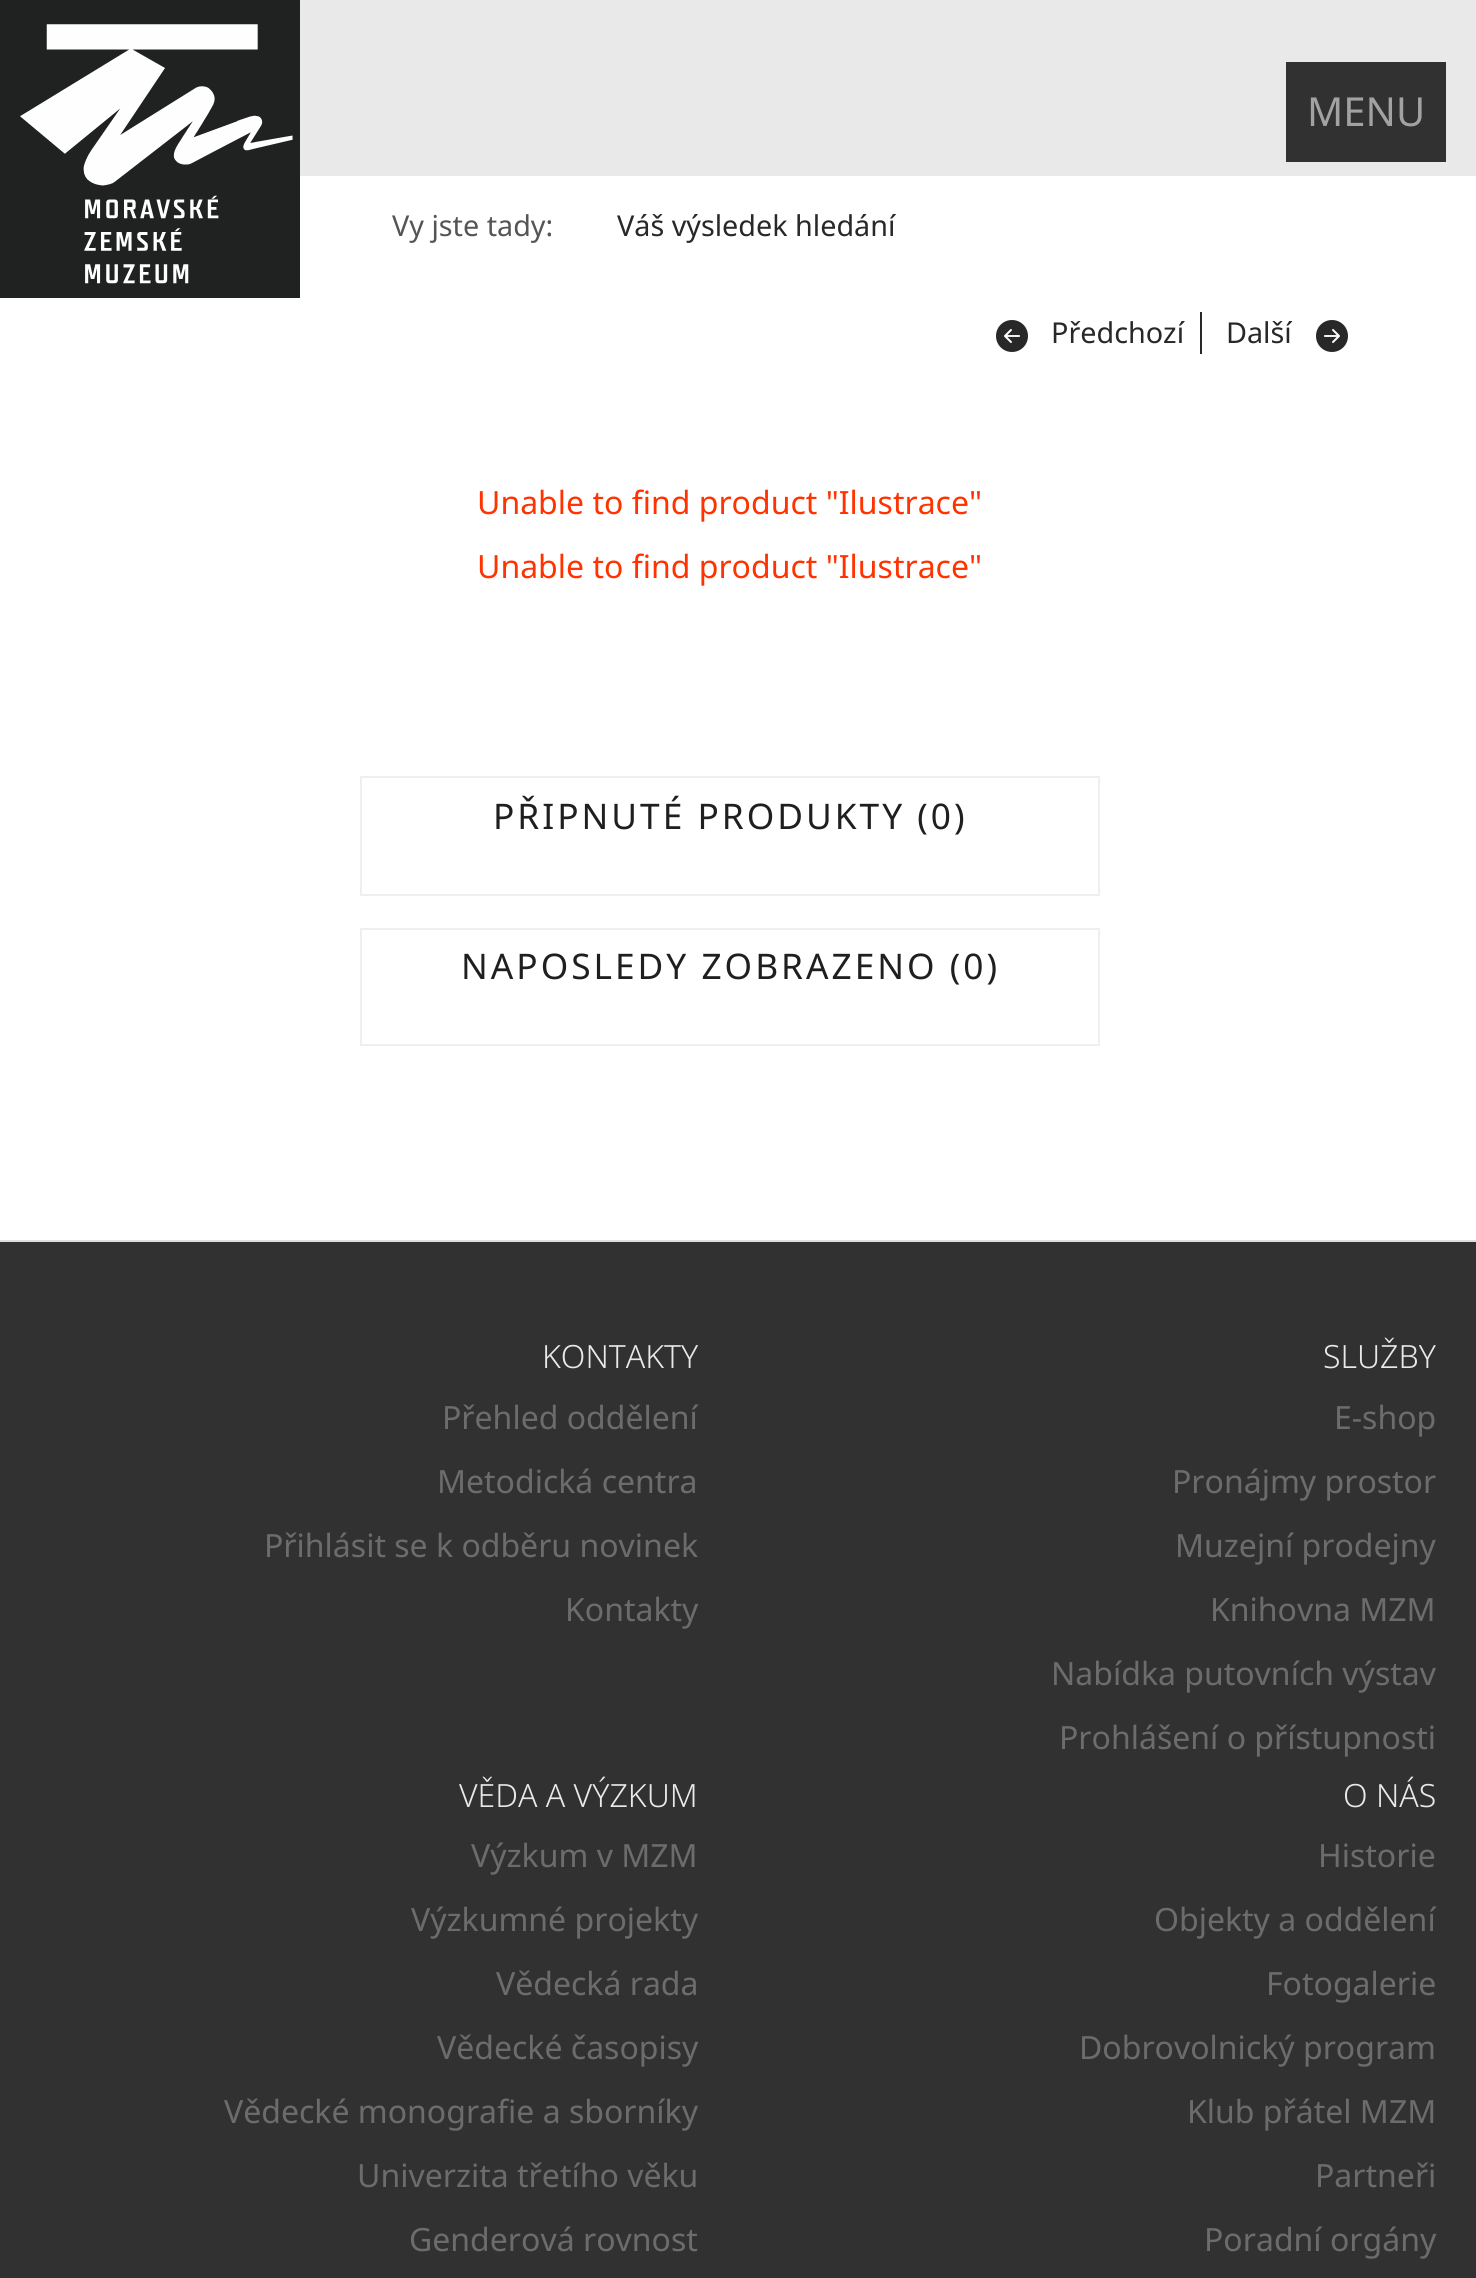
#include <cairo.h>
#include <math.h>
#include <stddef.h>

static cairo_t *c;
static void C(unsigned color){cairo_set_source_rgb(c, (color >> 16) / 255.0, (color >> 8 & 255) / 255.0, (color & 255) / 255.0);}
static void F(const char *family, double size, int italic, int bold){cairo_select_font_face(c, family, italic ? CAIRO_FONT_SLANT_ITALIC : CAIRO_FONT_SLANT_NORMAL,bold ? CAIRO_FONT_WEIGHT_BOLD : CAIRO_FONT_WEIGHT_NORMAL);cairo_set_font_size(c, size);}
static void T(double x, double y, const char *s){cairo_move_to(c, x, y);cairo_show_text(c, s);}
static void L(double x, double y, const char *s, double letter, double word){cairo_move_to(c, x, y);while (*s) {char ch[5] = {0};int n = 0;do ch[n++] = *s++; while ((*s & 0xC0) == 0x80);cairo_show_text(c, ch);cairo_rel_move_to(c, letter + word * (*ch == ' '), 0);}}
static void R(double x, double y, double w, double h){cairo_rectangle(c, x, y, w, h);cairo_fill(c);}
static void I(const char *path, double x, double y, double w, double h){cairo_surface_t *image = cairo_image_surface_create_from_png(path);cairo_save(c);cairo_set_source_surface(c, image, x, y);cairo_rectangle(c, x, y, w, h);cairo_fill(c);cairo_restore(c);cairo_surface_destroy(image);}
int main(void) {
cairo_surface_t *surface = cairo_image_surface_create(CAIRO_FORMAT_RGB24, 1476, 2278);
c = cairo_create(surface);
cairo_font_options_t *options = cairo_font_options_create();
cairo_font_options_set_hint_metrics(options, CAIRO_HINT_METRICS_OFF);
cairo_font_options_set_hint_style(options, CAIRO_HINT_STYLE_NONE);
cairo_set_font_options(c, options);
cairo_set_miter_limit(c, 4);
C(0xffffff);
cairo_paint(c);
C(0xe9e9e9);
R(300,0,1176,176);
C(0x313131);
R(1286,62,160,100);
F("Noto Sans",40,0,0);
C(0xa2a2a2);
T(1307,126,"MENU");
I("1.png",0,0,300,298);
F("Noto Sans",28.75,0,0);
C(0x555555);
T(392,236,"Vy jste tady:");
C(0x282828);
T(617,236,"Váš výsledek hledání");
R(1200,312,2,42);
I("2.png",996,320,32,32);
T(1051,343,"Předchozí");
T(1226,343,"Další");
I("3.png",1316,320,32,32);
F("Noto Sans",32,0,0);
C(0xff3300);
T(477,514,"Unable to find product \"Ilustrace\"");
T(477,578,"Unable to find product \"Ilustrace\"");
cairo_rectangle(c,361,777,738,118);
C(0xefefef);
cairo_stroke(c);
F("Noto Sans",35.25,0,0);
C(0x1f1f1f);
L(493,829,"PŘIPNUTÉ PRODUKTY (0)",3,0);
cairo_rectangle(c,361,929,738,116);
C(0xefefef);
cairo_stroke(c);
C(0x1f1f1f);
L(461,979,"NAPOSLEDY ZOBRAZENO (0)",3,0);
C(0x313131);
R(0,1242,1476,1036);
C(0xdedede);
R(0,1240,1476,2);
F("Noto Sans Light",32,0,0);
C(0xe9e9e9);
T(542,1368,"KONTAKTY");
F("Noto Sans",32,0,0);
C(0x6c6c6c);
T(442,1429,"Přehled oddělení");
T(437,1493,"Metodická centra");
T(264,1557,"Přihlásit se k odběru novinek");
T(565,1621,"Kontakty");
F("Noto Sans Light",32,0,0);
C(0xe9e9e9);
T(1323,1368,"SLUŽBY");
F("Noto Sans",32,0,0);
C(0x6c6c6c);
T(1334,1429,"E-shop");
T(1172,1493,"Pronájmy prostor");
T(1175,1557,"Muzejní prodejny");
T(1210,1621,"Knihovna MZM");
T(1051,1685,"Nabídka putovních výstav");
T(1059,1749,"Prohlášení o přístupnosti");
F("Noto Sans Light",32,0,0);
C(0xe9e9e9);
T(459,1807,"VĚDA A VÝZKUM");
F("Noto Sans",32,0,0);
C(0x6c6c6c);
T(471,1867,"Výzkum v MZM");
T(411,1931,"Výzkumné projekty");
T(496,1995,"Vědecká rada");
T(437,2059,"Vědecké časopisy");
T(224,2123,"Vědecké monografie a sborníky");
T(357,2187,"Univerzita třetího věku");
T(409,2251,"Genderová rovnost");
F("Noto Sans Light",32,0,0);
C(0xe9e9e9);
T(1343,1807,"O NÁS");
F("Noto Sans",32,0,0);
C(0x6c6c6c);
T(1318,1867,"Historie");
T(1154,1931,"Objekty a oddělení");
T(1266,1995,"Fotogalerie");
T(1079,2059,"Dobrovolnický program");
T(1187,2123,"Klub přátel MZM");
T(1315,2187,"Partneři");
T(1204,2251,"Poradní orgány");
cairo_surface_write_to_png(surface, "o.png");
cairo_font_options_destroy(options);
cairo_destroy(c);
cairo_surface_destroy(surface);
return 0;
}
